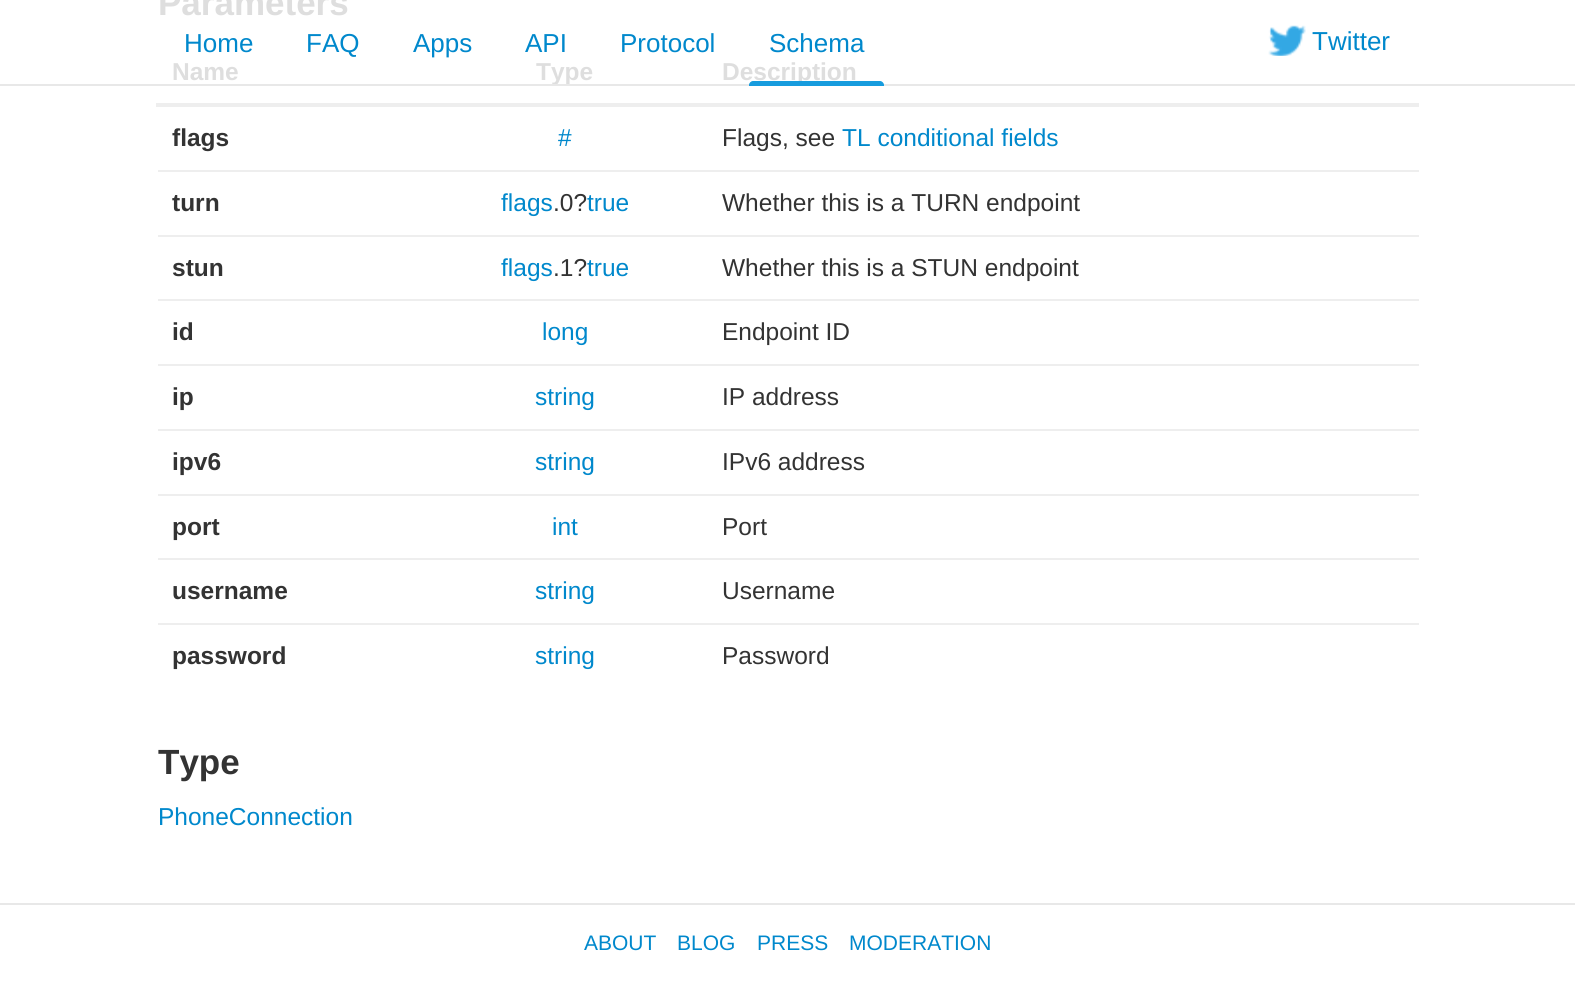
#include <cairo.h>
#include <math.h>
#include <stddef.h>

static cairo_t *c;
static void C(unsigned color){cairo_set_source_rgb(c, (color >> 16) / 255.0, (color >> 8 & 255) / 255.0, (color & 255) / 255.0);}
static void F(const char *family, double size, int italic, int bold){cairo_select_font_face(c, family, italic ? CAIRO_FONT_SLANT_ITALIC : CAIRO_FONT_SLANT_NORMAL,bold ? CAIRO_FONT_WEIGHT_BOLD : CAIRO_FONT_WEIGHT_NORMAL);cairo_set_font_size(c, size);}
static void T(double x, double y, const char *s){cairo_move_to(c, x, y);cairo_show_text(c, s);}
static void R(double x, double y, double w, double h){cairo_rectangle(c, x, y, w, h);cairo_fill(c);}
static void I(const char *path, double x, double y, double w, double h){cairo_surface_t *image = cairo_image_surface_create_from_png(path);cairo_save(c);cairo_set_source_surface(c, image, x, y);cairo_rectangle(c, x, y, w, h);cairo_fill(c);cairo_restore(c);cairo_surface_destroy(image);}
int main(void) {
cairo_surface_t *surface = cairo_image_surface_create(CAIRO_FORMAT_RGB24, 1575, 982);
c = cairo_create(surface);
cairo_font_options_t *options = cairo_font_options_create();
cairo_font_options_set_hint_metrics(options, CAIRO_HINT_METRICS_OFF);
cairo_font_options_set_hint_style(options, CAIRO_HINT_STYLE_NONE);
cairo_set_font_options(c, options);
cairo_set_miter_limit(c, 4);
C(0xffffff);
cairo_paint(c);
F("Liberation Sans",35,0,1);
C(0xdedede);
T(158,15,"Parameters");
F("Liberation Sans",24.5,0,1);
T(172,80,"Name");
T(536,80,"Type");
C(0xeeeeee);
R(156,103,1263,4);
C(0xdedede);
T(722,80,"Description");
C(0x333333);
T(172,146,"flags");
F("Liberation Sans",24.5,0,0);
C(0x0088cc);
T(558,146,"#");
C(0x333333);
T(722,146,"Flags, see");
C(0x0088cc);
T(842,146,"TL conditional fields");
F("Liberation Sans",24.5,0,1);
C(0x333333);
T(172,211,"turn");
F("Liberation Sans",24.5,0,0);
C(0x0088cc);
T(501,211,"flags");
C(0x333333);
T(553,211,".0?");
C(0x0088cc);
T(587,211,"true");
C(0xeeeeee);
R(158,170,1261,2);
C(0x333333);
T(722,211,"Whether this is a TURN endpoint");
F("Liberation Sans",24.5,0,1);
T(172,276,"stun");
F("Liberation Sans",24.5,0,0);
C(0x0088cc);
T(501,276,"flags");
C(0x333333);
T(553,276,".1?");
C(0x0088cc);
T(587,276,"true");
C(0xeeeeee);
R(158,235,1261,2);
C(0x333333);
T(722,276,"Whether this is a STUN endpoint");
F("Liberation Sans",24.5,0,1);
T(172,340,"id");
F("Liberation Sans",24.5,0,0);
C(0x0088cc);
T(542,340,"long");
C(0xeeeeee);
R(158,299,1261,2);
C(0x333333);
T(722,340,"Endpoint ID");
F("Liberation Sans",24.5,0,1);
T(172,405,"ip");
F("Liberation Sans",24.5,0,0);
C(0x0088cc);
T(535,405,"string");
C(0xeeeeee);
R(158,364,1261,2);
C(0x333333);
T(722,405,"IP address");
F("Liberation Sans",24.5,0,1);
T(172,470,"ipv6");
F("Liberation Sans",24.5,0,0);
C(0x0088cc);
T(535,470,"string");
C(0xeeeeee);
R(158,429,1261,2);
C(0x333333);
T(722,470,"IPv6 address");
F("Liberation Sans",24.5,0,1);
T(172,535,"port");
F("Liberation Sans",24.5,0,0);
C(0x0088cc);
T(552,535,"int");
C(0xeeeeee);
R(158,494,1261,2);
C(0x333333);
T(722,535,"Port");
F("Liberation Sans",24.5,0,1);
T(172,599,"username");
F("Liberation Sans",24.5,0,0);
C(0x0088cc);
T(535,599,"string");
C(0xeeeeee);
R(158,558,1261,2);
C(0x333333);
T(722,599,"Username");
F("Liberation Sans",24.5,0,1);
T(172,664,"password");
F("Liberation Sans",24.5,0,0);
C(0x0088cc);
T(535,664,"string");
C(0xeeeeee);
R(158,623,1261,2);
C(0x333333);
T(722,664,"Password");
F("Liberation Sans",35,0,1);
T(158,774,"Type");
F("Liberation Sans",24.5,0,0);
C(0x0088cc);
T(158,825,"PhoneConnection");
C(0xe8e8e8);
R(0,84,1575,2);
F("Liberation Sans",26,0,0);
C(0x0088cc);
T(184,52,"Home");
T(306,52,"FAQ");
T(413,52,"Apps");
T(525,52,"API");
T(620,52,"Protocol");
T(769,52,"Schema");
C(0x179cde);
cairo_new_path(c);
cairo_move_to(c,753,81);
cairo_line_to(c,880,81);
cairo_curve_to(c,882,81,884,83,884,85);
cairo_line_to(c,884,86);
cairo_line_to(c,749,86);
cairo_line_to(c,749,85);
cairo_curve_to(c,749,83,751,81,753,81);
cairo_close_path(c);
cairo_fill(c);
I("1.png",1268,25,38,31);
C(0x0088cc);
T(1312,50,"Twitter");
C(0xe8e8e8);
R(0,903,1575,2);
F("Liberation Sans",21,0,0);
C(0x0088cc);
T(584,950,"ABOUT");
T(677,950,"BLOG");
T(757,950,"PRESS");
T(849,950,"MODERATION");
cairo_surface_write_to_png(surface, "o.png");
cairo_font_options_destroy(options);
cairo_destroy(c);
cairo_surface_destroy(surface);
return 0;
}
